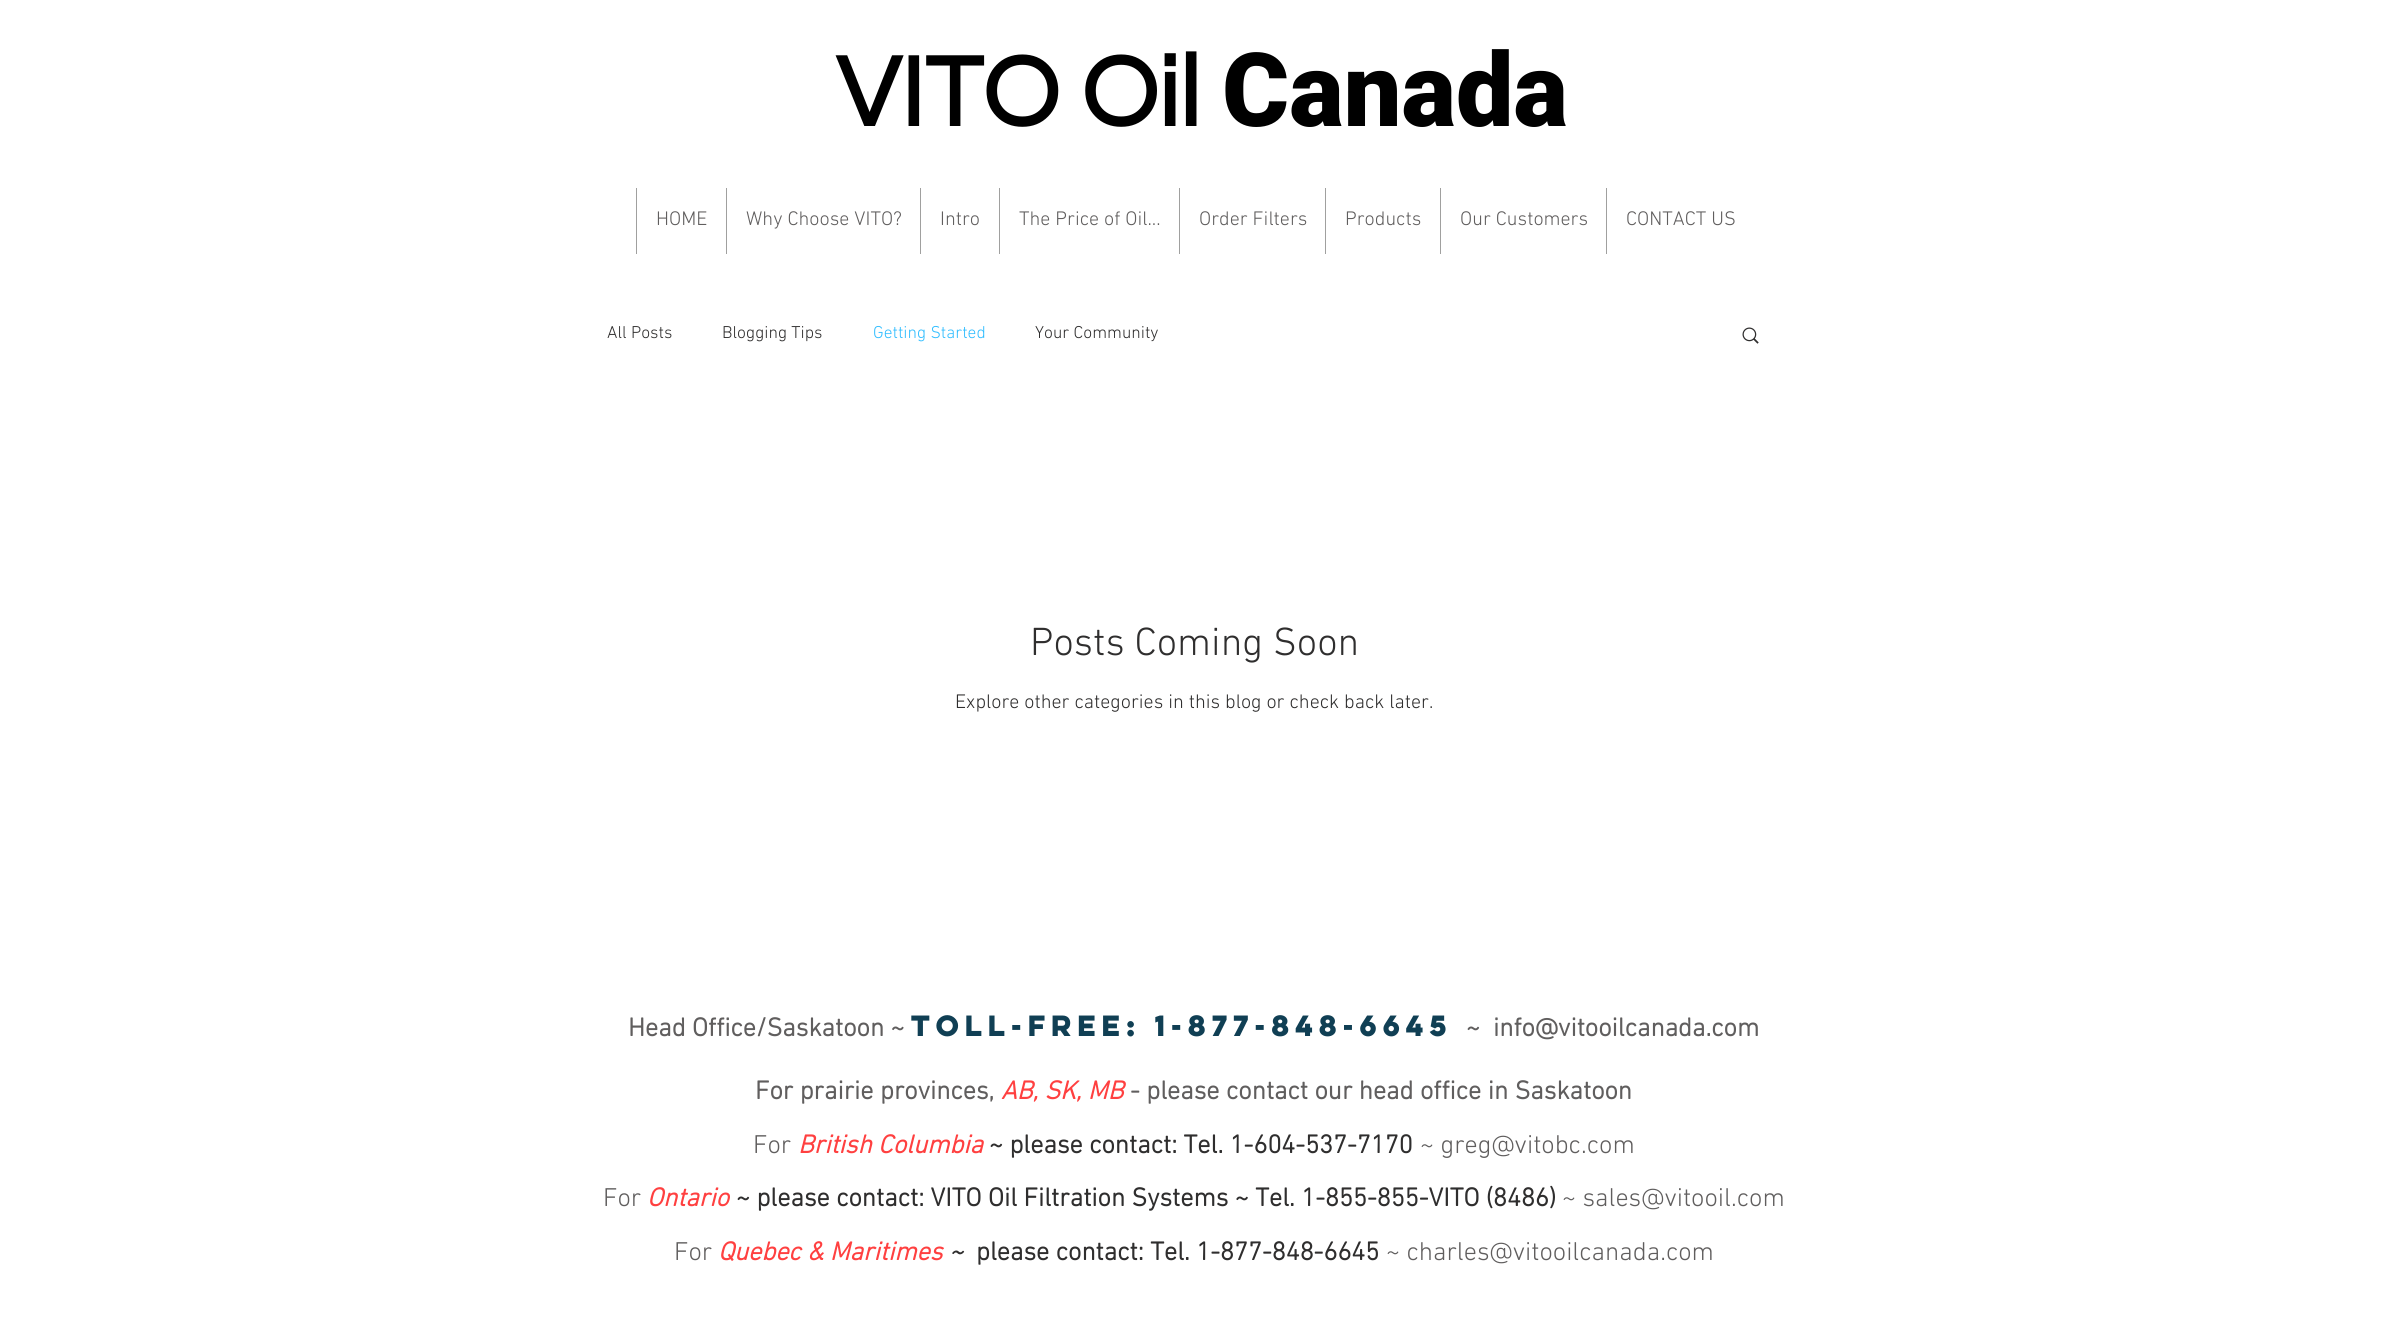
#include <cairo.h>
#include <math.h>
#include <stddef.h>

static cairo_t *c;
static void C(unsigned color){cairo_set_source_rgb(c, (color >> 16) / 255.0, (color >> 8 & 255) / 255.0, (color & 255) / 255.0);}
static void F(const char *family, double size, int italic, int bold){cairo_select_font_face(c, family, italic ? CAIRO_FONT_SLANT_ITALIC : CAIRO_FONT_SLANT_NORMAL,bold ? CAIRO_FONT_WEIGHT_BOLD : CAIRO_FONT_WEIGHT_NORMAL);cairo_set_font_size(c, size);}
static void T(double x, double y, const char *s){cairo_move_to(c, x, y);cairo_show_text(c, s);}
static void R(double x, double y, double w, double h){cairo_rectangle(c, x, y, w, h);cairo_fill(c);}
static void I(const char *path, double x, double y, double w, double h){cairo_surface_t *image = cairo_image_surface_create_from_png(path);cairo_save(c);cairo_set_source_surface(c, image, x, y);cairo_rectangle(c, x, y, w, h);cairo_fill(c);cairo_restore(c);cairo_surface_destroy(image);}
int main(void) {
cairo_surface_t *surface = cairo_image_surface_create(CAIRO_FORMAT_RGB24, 2388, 1318);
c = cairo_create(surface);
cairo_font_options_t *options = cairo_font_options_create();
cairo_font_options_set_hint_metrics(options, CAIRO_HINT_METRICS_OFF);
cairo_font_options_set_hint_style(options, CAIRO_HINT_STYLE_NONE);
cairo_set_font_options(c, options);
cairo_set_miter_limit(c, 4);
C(0xffffff);
cairo_paint(c);
F("Questrial",102.5,0,1);
C(0x000000);
T(836,126,"VITO Oil");
F("Roboto Black",102.5,0,0);
T(1222,126,"Canada");
C(0xa0a09f);
R(636,188,1,66);
F("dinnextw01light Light",20,0,0);
C(0x605e5e);
T(656,225,"HOME");
C(0xa0a09f);
R(726,188,1,66);
C(0x605e5e);
T(746,225,"Why Choose VITO?");
C(0xa0a09f);
R(920,188,1,66);
C(0x605e5e);
T(940,225,"Intro");
C(0xa0a09f);
R(999,188,1,66);
C(0x605e5e);
T(1019,225,"The Price of Oil...");
C(0xa0a09f);
R(1179,188,1,66);
C(0x605e5e);
T(1199,225,"Order Filters");
C(0xa0a09f);
R(1325,188,1,66);
C(0x605e5e);
T(1345,225,"Products");
C(0xa0a09f);
R(1440,188,1,66);
C(0x605e5e);
T(1460,225,"Our Customers");
C(0xa0a09f);
R(1606,188,1,66);
C(0x605e5e);
T(1626,225,"CONTACT US");
F("dinnextw01light Light",17.5,0,0);
C(0x2f2e2e);
T(607,338,"All Posts");
T(722,338,"Blogging Tips");
C(0x30bdff);
T(873,338,"Getting Started");
C(0x2f2e2e);
T(1035,338,"Your Community");
I("1.png",1742,327,17,17);
F("dinnextw01light Light",40,0,0);
T(1030,655,"Posts Coming Soon");
F("dinnextw01light Light",20,0,0);
T(955,708,"Explore other categories in this blog or check back later.");
F("dinnextw01light",26.25,0,1);
C(0x605e5e);
T(628,1036,"Head Office/Saskatoon ~");
F("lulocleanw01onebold",26.25,0,1);
C(0x103f54);
T(911,1036,"Toll-free: 1-877-848-6645");
F("dinnextw01light",26.25,0,1);
C(0x605e5e);
T(1466,1036,"~");
T(1493,1036,"info@vitooilcanada.com");
T(755,1099,"For prairie provinces,");
F("dinnextw01light",26.25,1,1);
C(0xff4040);
T(1001,1099,"AB, SK, MB");
F("dinnextw01light",26.25,0,1);
C(0x605e5e);
T(1130,1099,"- please contact our head office in Saskatoon");
F("dinnextw01light Light",26.25,0,0);
T(753,1153,"For");
F("dinnextw01light",26.25,1,1);
C(0xff4040);
T(798,1153,"British Columbia");
F("dinnextw01light",26.25,0,1);
C(0x2f2e2e);
T(989,1153,"~ please contact: Tel. 1-604-537-7170");
F("dinnextw01light Light",26.25,0,0);
C(0x605e5e);
T(1420,1153,"~ greg@vitobc.com");
T(603,1206,"For");
F("dinnextw01light",26.25,1,1);
C(0xff4040);
T(647,1206,"Ontario");
F("dinnextw01light",26.25,0,1);
C(0x2f2e2e);
T(736,1206,"~ please contact: VITO Oil Filtration Systems ~ Tel. 1-855-855-VITO (8486)");
F("dinnextw01light Light",26.25,0,0);
C(0x605e5e);
T(1562,1206,"~ sales@vitooil.com");
T(674,1260,"For");
F("dinnextw01light",26.25,1,1);
C(0xff4040);
T(718,1260,"Quebec & Maritimes");
C(0x2f2e2e);
T(949,1260,"~");
F("dinnextw01light",26.25,0,1);
T(976,1260,"please contact: Tel. 1-877-848-6645");
F("dinnextw01light Light",26.25,0,0);
C(0x605e5e);
T(1386,1260,"~ charles@vitooilcanada.com");
cairo_surface_write_to_png(surface, "o.png");
cairo_font_options_destroy(options);
cairo_destroy(c);
cairo_surface_destroy(surface);
return 0;
}
